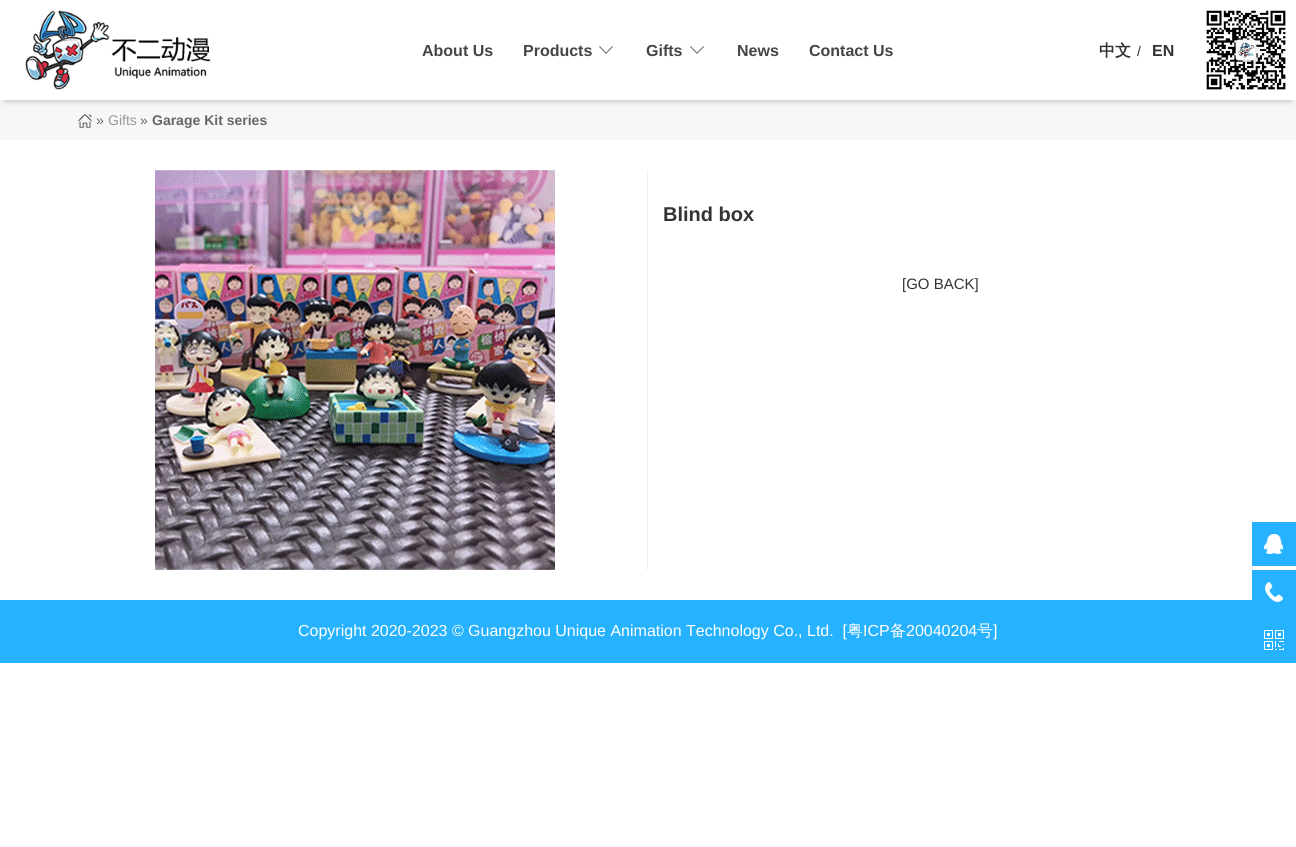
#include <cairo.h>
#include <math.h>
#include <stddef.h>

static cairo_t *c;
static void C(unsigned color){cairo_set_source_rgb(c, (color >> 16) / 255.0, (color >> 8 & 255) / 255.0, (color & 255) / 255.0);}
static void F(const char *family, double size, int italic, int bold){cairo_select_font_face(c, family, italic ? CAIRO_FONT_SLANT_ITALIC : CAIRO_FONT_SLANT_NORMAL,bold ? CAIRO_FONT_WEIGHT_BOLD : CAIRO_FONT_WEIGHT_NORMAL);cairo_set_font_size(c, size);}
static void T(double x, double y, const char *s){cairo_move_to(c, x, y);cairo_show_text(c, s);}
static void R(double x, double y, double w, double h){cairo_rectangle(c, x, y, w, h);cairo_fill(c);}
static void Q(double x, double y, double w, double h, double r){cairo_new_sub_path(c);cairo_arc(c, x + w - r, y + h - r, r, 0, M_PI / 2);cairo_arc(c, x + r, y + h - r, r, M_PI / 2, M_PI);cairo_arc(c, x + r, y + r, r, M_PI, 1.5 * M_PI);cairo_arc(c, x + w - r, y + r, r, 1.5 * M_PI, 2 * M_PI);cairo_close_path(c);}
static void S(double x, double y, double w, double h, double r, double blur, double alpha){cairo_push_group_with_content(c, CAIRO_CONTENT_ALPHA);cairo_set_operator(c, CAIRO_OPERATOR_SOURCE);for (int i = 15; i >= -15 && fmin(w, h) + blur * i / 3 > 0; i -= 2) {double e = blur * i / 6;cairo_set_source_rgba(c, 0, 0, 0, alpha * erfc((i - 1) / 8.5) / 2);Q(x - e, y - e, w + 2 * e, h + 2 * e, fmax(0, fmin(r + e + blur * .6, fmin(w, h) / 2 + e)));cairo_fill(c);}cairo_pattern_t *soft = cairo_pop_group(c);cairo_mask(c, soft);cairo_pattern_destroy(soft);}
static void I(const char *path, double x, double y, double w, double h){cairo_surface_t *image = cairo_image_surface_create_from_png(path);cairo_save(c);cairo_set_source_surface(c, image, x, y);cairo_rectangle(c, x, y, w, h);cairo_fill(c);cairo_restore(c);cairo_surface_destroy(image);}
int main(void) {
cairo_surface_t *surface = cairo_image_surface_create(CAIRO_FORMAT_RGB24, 1296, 847);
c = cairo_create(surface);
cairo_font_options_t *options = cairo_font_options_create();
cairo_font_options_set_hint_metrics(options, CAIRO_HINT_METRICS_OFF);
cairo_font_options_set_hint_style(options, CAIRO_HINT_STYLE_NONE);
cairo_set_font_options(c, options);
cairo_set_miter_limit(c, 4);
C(0xffffff);
cairo_paint(c);
C(0xf7f7f7);
R(0,100,1296,40);
cairo_save(c);
cairo_rectangle(c,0,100,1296,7);
cairo_clip(c);
C(0xaaaaaa);
S(5,10,1286,90,0,3.5,1);
cairo_restore(c);
I("1.png",25,10,186,80);
F("Liberation Sans",16,0,1);
C(0x454545);
T(422,56,"About Us");
T(523,56,"Products");
I("2.png",599,46,14,8);
T(646,56,"Gifts");
I("2.png",690,46,14,8);
T(737,56,"News");
T(809,56,"Contact Us");
F("WenQuanYi Zen Hei",16,0,1);
C(0x333333);
T(1099,56,"中文");
F("Liberation Sans",14,0,0);
T(1137,56,"/");
F("Liberation Sans",16,0,1);
T(1152,56,"EN");
I("3.png",1206,10,80,80);
I("4.png",78,114,14,14);
F("Liberation Sans",14,0,0);
C(0x666666);
T(96,125,"»");
C(0x999999);
T(108,125,"Gifts");
C(0x666666);
T(140,125,"»");
F("Liberation Sans",14,0,1);
T(152,125,"Garage Kit series");
C(0xefefef);
R(647,170,1,400);
I("5.png",155,170,400,400);
F("Liberation Sans",20,0,1);
C(0x333333);
T(663,221,"Blind box");
F("Liberation Sans",15,0,0);
T(902,289,"[GO BACK]");
C(0x26b2ff);
R(0,600,1296,63);
F("Liberation Sans",16,0,0);
C(0xffffff);
T(298,636,"Copyright 2020-2023 © Guangzhou Unique Animation Technology Co., Ltd.  [");
F("WenQuanYi Zen Hei Medium",16,0,0);
T(847,636,"粤");
F("Liberation Sans",16,0,0);
T(863,636,"ICP");
F("WenQuanYi Zen Hei Medium",16,0,0);
T(890,636,"备");
F("Liberation Sans",16,0,0);
T(906,636,"20040204");
F("WenQuanYi Zen Hei Medium",16,0,0);
T(977,636,"号");
F("Liberation Sans",16,0,0);
T(993,636,"]");
C(0x26b2ff);
R(1252,522,44,44);
I("6.png",1264,534,19,20);
R(1252,570,44,30);
I("7.png",1265,582,18,20);
I("8.png",1264,630,20,20);
cairo_surface_write_to_png(surface, "o.png");
cairo_font_options_destroy(options);
cairo_destroy(c);
cairo_surface_destroy(surface);
return 0;
}
